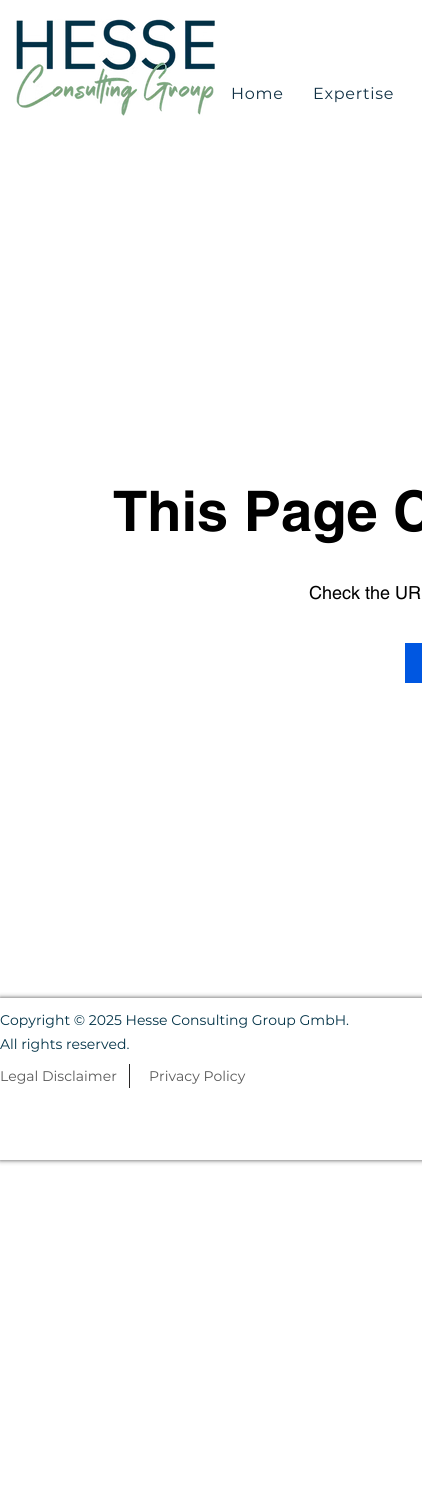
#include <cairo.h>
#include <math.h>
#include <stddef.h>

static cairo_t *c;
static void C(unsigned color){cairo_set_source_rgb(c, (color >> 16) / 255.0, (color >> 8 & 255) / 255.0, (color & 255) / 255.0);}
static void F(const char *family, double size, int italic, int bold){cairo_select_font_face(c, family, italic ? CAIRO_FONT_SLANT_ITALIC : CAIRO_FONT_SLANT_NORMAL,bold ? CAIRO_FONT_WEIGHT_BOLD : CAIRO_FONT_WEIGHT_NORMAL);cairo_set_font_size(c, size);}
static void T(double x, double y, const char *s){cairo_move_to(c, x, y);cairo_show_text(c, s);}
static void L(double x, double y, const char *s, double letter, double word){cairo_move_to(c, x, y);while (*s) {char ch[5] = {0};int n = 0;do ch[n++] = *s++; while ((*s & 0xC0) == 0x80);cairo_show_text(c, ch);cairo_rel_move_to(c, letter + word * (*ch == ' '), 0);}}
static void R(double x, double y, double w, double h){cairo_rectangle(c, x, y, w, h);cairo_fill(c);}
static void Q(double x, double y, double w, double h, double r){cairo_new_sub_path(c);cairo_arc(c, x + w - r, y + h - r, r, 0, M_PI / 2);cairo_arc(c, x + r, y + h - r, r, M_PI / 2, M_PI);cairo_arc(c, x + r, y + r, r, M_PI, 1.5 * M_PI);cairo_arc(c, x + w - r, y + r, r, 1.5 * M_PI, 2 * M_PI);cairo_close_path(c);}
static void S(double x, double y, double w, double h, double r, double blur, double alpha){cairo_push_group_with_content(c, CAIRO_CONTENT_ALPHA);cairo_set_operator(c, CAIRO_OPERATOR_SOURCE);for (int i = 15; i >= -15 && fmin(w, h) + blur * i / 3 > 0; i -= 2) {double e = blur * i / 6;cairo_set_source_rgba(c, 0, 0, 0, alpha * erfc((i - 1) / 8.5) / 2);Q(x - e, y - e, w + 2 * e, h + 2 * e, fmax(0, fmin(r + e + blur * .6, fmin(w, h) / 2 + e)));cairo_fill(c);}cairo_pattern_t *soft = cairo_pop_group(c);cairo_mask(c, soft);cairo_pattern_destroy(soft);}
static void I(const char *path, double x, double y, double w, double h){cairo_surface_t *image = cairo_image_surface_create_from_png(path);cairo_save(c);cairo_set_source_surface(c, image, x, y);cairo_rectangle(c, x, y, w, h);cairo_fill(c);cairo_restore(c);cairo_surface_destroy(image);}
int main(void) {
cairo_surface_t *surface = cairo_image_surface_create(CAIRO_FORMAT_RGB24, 422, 1492);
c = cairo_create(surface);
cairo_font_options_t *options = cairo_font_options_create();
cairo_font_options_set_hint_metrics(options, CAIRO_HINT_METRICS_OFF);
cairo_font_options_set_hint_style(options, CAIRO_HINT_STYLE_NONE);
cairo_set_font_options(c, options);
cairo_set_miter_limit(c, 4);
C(0xffffff);
cairo_paint(c);
I("1.png",16,19,199,97);
F("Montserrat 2",16,0,0);
C(0x103044);
L(231,99,"Home",.75,0);
L(313,99,"Expertise",.75,0);
F("helvetica",56,0,1);
C(0x000000);
T(113,531,"This Page C");
F("helvetica",18,0,0);
T(309,599,"Check the UR");
C(0x0057e1);
R(405,643,17,40);
cairo_save(c);
cairo_set_fill_rule(c,CAIRO_FILL_RULE_EVEN_ODD);
cairo_new_path(c);
cairo_move_to(c,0,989);
cairo_line_to(c,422,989);
cairo_line_to(c,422,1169);
cairo_line_to(c,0,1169);
cairo_close_path(c);
cairo_move_to(c,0,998);
cairo_line_to(c,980,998);
cairo_line_to(c,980,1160);
cairo_line_to(c,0,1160);
cairo_close_path(c);
cairo_clip(c);
C(0x000000);
S(0,998,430,162,0,2.5,.7);
cairo_restore(c);
F("Montserrat",14,0,0);
C(0x003146);
T(0,1025,"Copyright © 2025 Hesse Consulting Group GmbH.");
T(0,1049,"All rights reserved.");
F("Montserrat 2",14,0,0);
C(0x595959);
T(0,1081,"Legal Disclaimer");
C(0x282626);
R(129,1064,1,24);
C(0x595959);
T(149,1081,"Privacy Policy");
cairo_surface_write_to_png(surface, "o.png");
cairo_font_options_destroy(options);
cairo_destroy(c);
cairo_surface_destroy(surface);
return 0;
}
